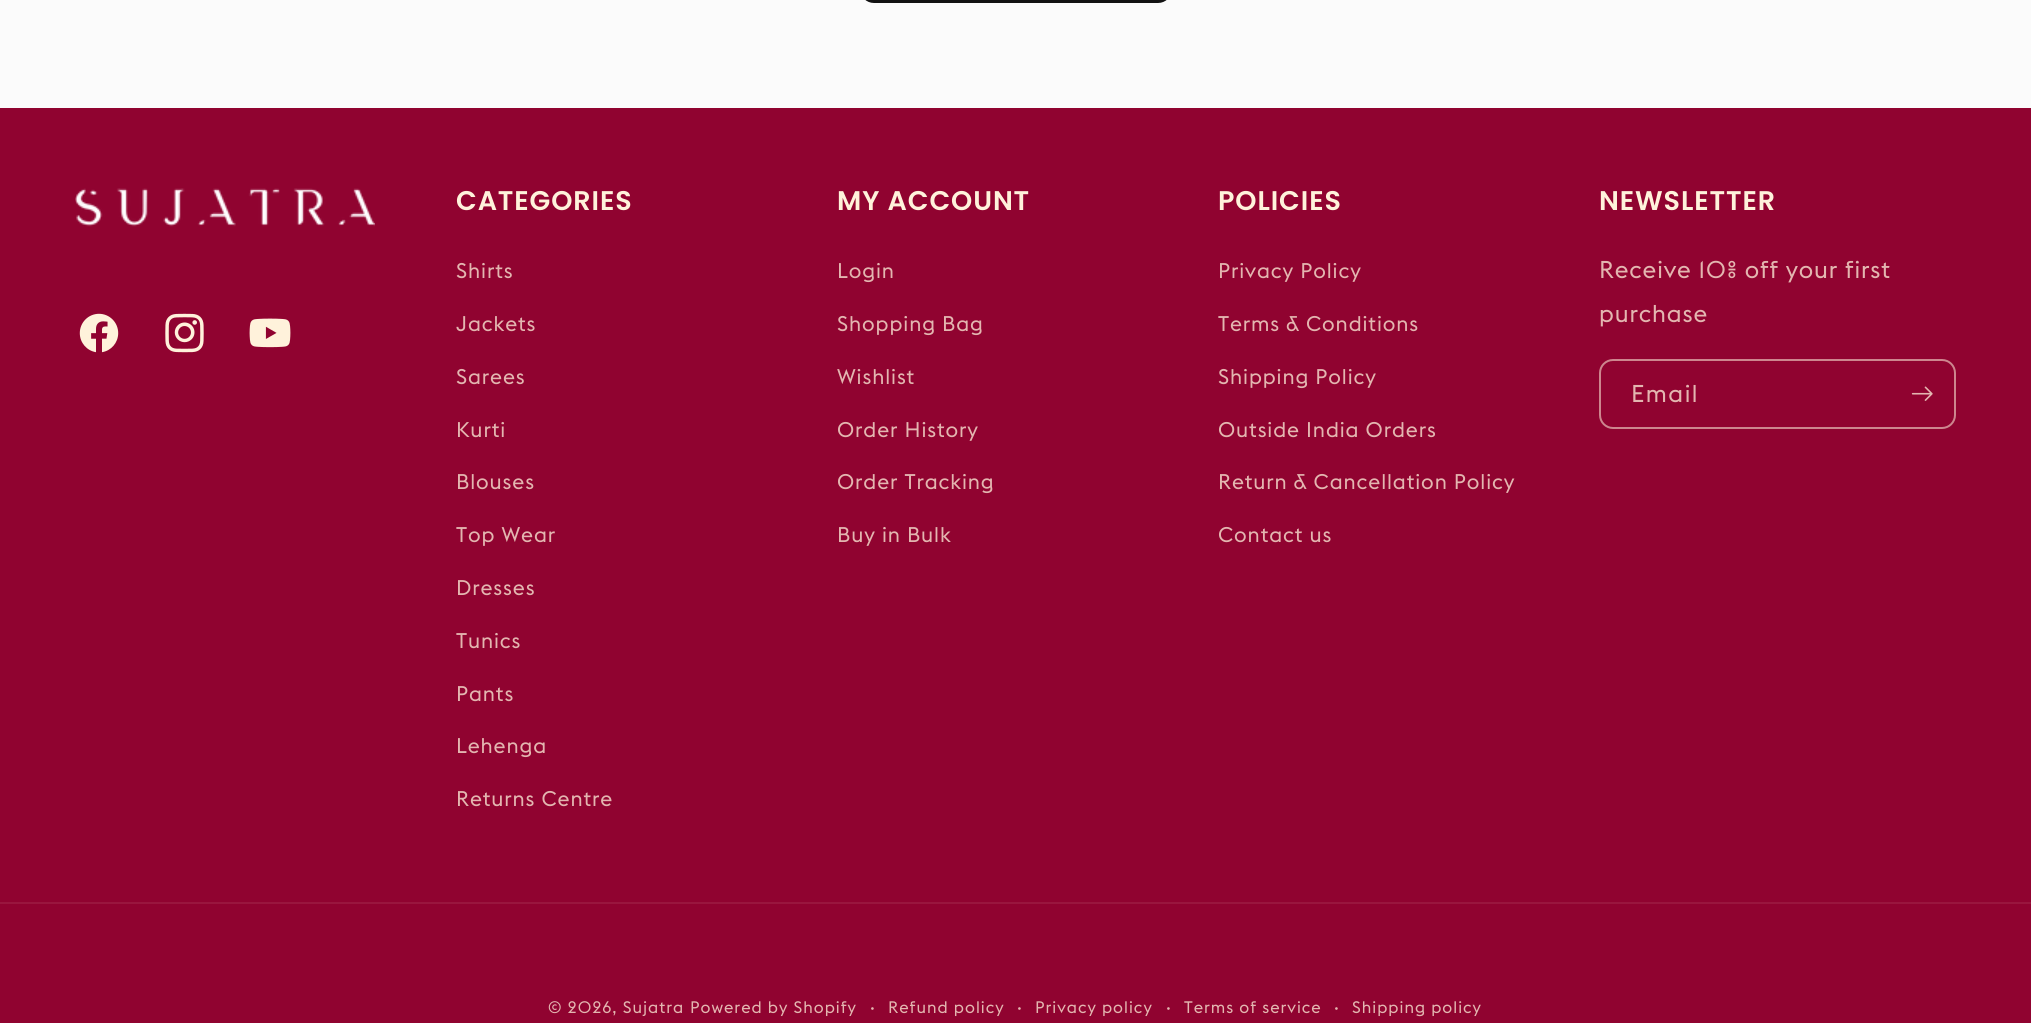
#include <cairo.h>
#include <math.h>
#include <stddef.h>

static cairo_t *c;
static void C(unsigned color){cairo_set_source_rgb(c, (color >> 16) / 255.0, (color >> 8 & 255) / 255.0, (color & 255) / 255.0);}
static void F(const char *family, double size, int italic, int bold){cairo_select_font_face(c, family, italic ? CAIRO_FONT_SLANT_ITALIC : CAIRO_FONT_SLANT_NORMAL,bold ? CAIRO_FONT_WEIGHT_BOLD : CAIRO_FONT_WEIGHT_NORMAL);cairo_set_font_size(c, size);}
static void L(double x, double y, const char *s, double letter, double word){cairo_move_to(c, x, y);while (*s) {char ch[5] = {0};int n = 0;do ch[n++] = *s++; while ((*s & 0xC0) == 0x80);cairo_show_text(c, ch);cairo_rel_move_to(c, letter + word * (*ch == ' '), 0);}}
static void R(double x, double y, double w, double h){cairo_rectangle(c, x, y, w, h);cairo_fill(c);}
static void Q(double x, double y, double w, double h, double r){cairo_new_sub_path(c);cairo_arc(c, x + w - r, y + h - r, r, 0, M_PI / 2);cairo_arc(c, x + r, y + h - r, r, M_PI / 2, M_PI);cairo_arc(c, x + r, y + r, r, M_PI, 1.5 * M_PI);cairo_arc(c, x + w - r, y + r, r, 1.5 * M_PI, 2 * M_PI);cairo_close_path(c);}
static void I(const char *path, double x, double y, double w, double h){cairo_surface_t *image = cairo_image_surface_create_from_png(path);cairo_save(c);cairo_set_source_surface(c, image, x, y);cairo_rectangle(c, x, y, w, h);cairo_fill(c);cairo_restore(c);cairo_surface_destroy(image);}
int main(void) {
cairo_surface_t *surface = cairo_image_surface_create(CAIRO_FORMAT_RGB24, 2031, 1023);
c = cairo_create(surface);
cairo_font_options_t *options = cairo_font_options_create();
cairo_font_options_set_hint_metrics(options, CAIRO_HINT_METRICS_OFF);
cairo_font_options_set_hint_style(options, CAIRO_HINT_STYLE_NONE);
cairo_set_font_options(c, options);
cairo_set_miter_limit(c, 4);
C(0xfbfbfb);
cairo_paint(c);
C(0x121212);
Q(861,-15,310,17,13);
cairo_fill_preserve(c);
cairo_stroke(c);
C(0x900330);
R(0,108,2031,915);
I("1.png",75,188,300,39);
I("2.png",79,313,40,40);
I("3.png",165,313,39,40);
I("4.png",249,318,42,30);
F("Poppins SemiBold",27,0,0);
C(0xfff2db);
L(456,210,"CATEGORIES",.9,0);
F("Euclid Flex",21,0,0);
C(0xe3b6b0);
L(456,278,"Shirts",.9,0);
L(456,331,"Jackets",.9,0);
L(456,384,"Sarees",.9,0);
L(456,437,"Kurti",.9,0);
L(456,489,"Blouses",.9,0);
L(456,542,"Top Wear",.9,0);
L(456,595,"Dresses",.9,0);
L(456,648,"Tunics",.9,0);
L(456,701,"Pants",.9,0);
L(456,753,"Lehenga",.9,0);
L(456,806,"Returns Centre",.9,0);
F("Poppins SemiBold",27,0,0);
C(0xfff2db);
L(837,210,"MY ACCOUNT",.9,0);
F("Euclid Flex",21,0,0);
C(0xe3b6b0);
L(837,278,"Login",.9,0);
L(837,331,"Shopping Bag",.9,0);
L(837,384,"Wishlist",.9,0);
L(837,437,"Order History",.9,0);
L(837,489,"Order Tracking",.9,0);
L(837,542,"Buy in Bulk",.9,0);
F("Poppins SemiBold",27,0,0);
C(0xfff2db);
L(1218,210,"POLICIES",.9,0);
F("Euclid Flex",21,0,0);
C(0xe3b6b0);
L(1218,278,"Privacy Policy",.9,0);
L(1218,331,"Terms & Conditions",.9,0);
L(1218,384,"Shipping Policy",.9,0);
L(1218,437,"Outside India Orders",.9,0);
L(1218,489,"Return & Cancellation Policy",.9,0);
L(1218,542,"Contact us",.9,0);
F("Poppins SemiBold",27,0,0);
C(0xfff2db);
L(1599,210,"NEWSLETTER",.9,0);
F("Euclid Flex",24,0,0);
C(0xe3b6b0);
L(1599,278,"Receive 10% off your first",.9,0);
L(1599,322,"purchase",.9,0);
Q(1600,360,355,68,13);
C(0xcd868e);
cairo_stroke(c);
C(0xe3b6b0);
L(1631,402,"Email",1.5,0);
I("5.png",1911,386,22,15);
C(0x99163e);
R(0,902,2031,2);
F("Euclid Flex",16.5,0,0);
C(0xe3b6b0);
L(548,1013,"© 2026, Sujatra",1,0);
L(690,1013,"Powered by Shopify",1,0);
F("Euclid Flex",18,0,0);
L(870,1013,"·",1,0);
F("Euclid Flex",16.5,0,0);
L(888,1013,"Refund policy",1,0);
F("Euclid Flex",18,0,0);
L(1017,1013,"·",1,0);
F("Euclid Flex",16.5,0,0);
L(1035,1013,"Privacy policy",1,0);
F("Euclid Flex",18,0,0);
L(1166,1013,"·",1,0);
F("Euclid Flex",16.5,0,0);
L(1184,1013,"Terms of service",1,0);
F("Euclid Flex",18,0,0);
L(1334,1013,"·",1,0);
F("Euclid Flex",16.5,0,0);
L(1352,1013,"Shipping policy",1,0);
cairo_surface_write_to_png(surface, "o.png");
cairo_font_options_destroy(options);
cairo_destroy(c);
cairo_surface_destroy(surface);
return 0;
}
